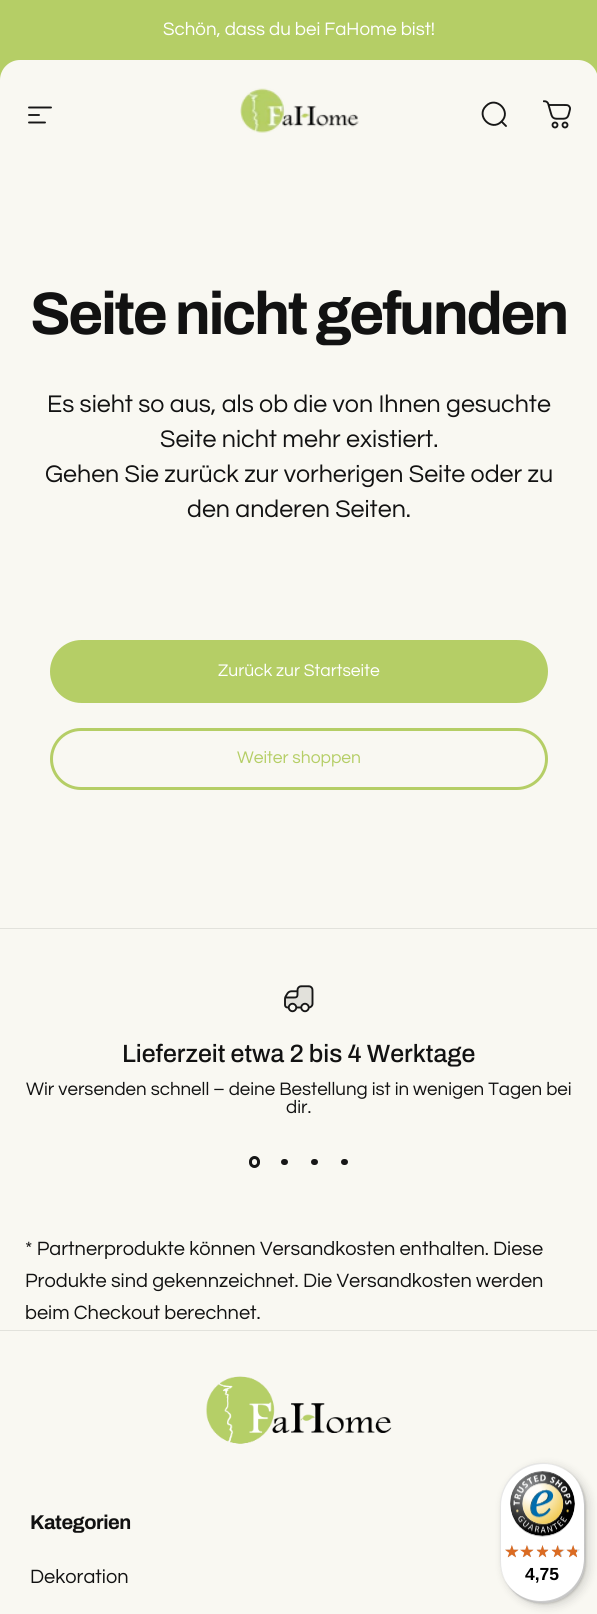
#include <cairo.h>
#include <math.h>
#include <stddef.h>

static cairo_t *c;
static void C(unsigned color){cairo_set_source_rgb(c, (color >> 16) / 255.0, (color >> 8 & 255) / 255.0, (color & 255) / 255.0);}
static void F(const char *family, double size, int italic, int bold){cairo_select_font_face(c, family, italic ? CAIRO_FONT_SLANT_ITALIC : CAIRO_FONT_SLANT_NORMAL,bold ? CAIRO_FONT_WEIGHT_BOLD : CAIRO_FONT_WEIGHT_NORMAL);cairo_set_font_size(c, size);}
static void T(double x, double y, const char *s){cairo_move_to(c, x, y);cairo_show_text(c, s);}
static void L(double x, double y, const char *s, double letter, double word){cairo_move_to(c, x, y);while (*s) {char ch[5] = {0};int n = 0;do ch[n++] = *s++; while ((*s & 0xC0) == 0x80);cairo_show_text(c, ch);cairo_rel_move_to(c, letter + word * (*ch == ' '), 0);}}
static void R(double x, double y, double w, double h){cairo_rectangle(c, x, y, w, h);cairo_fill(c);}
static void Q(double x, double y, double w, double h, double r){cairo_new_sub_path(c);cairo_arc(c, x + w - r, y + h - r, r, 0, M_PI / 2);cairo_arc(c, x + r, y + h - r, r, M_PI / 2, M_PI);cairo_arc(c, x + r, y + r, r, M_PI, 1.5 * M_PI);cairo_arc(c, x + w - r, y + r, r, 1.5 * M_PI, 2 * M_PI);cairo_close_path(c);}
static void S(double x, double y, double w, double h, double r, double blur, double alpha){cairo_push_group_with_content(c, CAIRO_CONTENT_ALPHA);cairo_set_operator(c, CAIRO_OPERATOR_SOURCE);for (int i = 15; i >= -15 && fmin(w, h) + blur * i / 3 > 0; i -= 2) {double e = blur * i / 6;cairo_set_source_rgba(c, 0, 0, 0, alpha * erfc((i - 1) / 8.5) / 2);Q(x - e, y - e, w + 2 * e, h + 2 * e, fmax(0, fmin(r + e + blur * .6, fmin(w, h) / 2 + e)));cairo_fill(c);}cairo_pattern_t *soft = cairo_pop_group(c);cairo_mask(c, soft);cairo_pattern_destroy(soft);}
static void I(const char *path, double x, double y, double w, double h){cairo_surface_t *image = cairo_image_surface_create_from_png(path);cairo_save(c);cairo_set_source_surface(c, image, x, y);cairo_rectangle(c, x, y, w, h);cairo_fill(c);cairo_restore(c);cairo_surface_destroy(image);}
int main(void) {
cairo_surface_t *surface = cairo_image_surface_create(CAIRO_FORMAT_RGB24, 597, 1614);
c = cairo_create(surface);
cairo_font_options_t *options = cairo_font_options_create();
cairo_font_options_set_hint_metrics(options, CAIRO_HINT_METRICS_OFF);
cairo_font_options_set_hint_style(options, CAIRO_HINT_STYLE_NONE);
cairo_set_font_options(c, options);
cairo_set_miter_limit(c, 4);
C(0xf9f8f2);
cairo_paint(c);
C(0xb5ce66);
R(0,0,597,20);
cairo_new_path(c);
cairo_move_to(c,20,0);
cairo_line_to(c,578,0);
cairo_curve_to(c,589,0,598,9,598,20);
cairo_line_to(c,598,80);
cairo_line_to(c,0,80);
cairo_line_to(c,0,20);
cairo_curve_to(c,0,9,9,0,20,0);
cairo_close_path(c);
cairo_fill(c);
F("Questrial",18.75,0,0);
C(0xffffff);
T(163,35,"Schön, dass du bei FaHome bist!");
C(0xf9f8f2);
cairo_new_path(c);
cairo_move_to(c,20,60);
cairo_line_to(c,578,60);
cairo_curve_to(c,589,60,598,69,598,80);
cairo_line_to(c,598,169);
cairo_line_to(c,0,169);
cairo_line_to(c,0,80);
cairo_curve_to(c,0,69,9,60,20,60);
cairo_close_path(c);
cairo_fill(c);
cairo_new_path(c);
cairo_move_to(c,29,107.5);
cairo_line_to(c,51,107.5);
cairo_move_to(c,29,115);
cairo_line_to(c,39,115);
cairo_move_to(c,29,122.5);
cairo_line_to(c,45,122.5);
C(0x171717);
cairo_set_line_width(c,1.9);
cairo_set_line_cap(c,CAIRO_LINE_CAP_ROUND);
cairo_stroke(c);
I("1.png",240,88,119,45);
cairo_new_path(c);
cairo_move_to(c,506,126);
cairo_line_to(c,501.5,121.5);
cairo_move_to(c,501.5,121.5);
cairo_curve_to(c,512,111.5,496,95.5,486,106);
cairo_curve_to(c,475.5,116,491.5,132,501.5,121.5);
cairo_close_path(c);
cairo_stroke(c);
I("2.png",543,100,28,29);
F("Archivo",60,0,1);
C(0x121212);
L(30,334,"Seite nicht gefunden",-2.4,0);
F("Questrial",25,0,0);
T(47,412,"Es sieht so aus, als ob die von Ihnen gesuchte");
T(160,447,"Seite nicht mehr existiert.");
T(45,482,"Gehen Sie zurück zur vorherigen Seite oder zu");
T(187,517,"den anderen Seiten.");
C(0xb5ce66);
Q(51.5,641.5,495,60,30);
cairo_fill_preserve(c);
cairo_set_line_width(c,3);
cairo_set_line_cap(c,CAIRO_LINE_CAP_BUTT);
cairo_stroke(c);
F("Questrial",17.5,0,0);
C(0xffffff);
T(218,676,"Zurück zur Startseite");
Q(51.5,729.5,495,59,29.5);
C(0xb5ce66);
cairo_stroke(c);
T(237,763,"Weiter shoppen");
C(0xe2e2dc);
R(0,928,597,1);
I("3.png",284,985,30,28);
F("Archivo Medium",25,0,0);
C(0x121212);
T(122,1062,"Lieferzeit etwa 2 bis 4 Werktage");
F("Questrial",18.75,0,0);
T(26,1095,"Wir versenden schnell – deine Bestellung ist in wenigen Tagen bei");
T(286,1113,"dir.");
Q(250.5,1157.5,8,9,4);
C(0x171717);
cairo_stroke(c);
Q(281,1159,7,6,3);
cairo_fill(c);
Q(311,1159,7,6,3);
cairo_fill(c);
Q(341,1159,7,6,3);
cairo_fill(c);
F("Questrial",20,0,0);
C(0x121212);
T(25,1255,"* Partnerprodukte können Versandkosten enthalten. Diese");
T(25,1287,"Produkte sind gekennzeichnet. Die Versandkosten werden");
T(25,1319,"beim Checkout berechnet.");
C(0xe2e2dc);
R(0,1330,597,1);
I("4.png",206,1376,186,68);
F("Archivo",20,0,1);
C(0x121212);
L(30,1529,"Kategorien",-.5,0);
F("Questrial",20,0,0);
T(30,1583,"Dekoration");
C(0x000000);
S(504,1466,85,140,42.5,5,.15);
S(501,1464,85,140,42.5,1,.15);
C(0xffffff);
Q(500,1463,85,140,42.5);
cairo_fill(c);
cairo_set_source_rgba(c,0,0,0,0.1);
cairo_new_path(c);
cairo_move_to(c,544,1464);
cairo_curve_to(c,554,1464,563,1468,571,1474);
cairo_curve_to(c,563,1467,553,1463,542,1463);
cairo_curve_to(c,519,1463,500,1482,500,1506);
cairo_line_to(c,500,1560);
cairo_curve_to(c,500,1573,506,1585,515,1593);
cairo_curve_to(c,506,1585,501,1574,501,1561);
cairo_line_to(c,501,1506);
cairo_curve_to(c,501,1483,520,1464,544,1464);
cairo_close_path(c);
cairo_fill(c);
cairo_set_source_rgba(c,0,0,0,0.2);
cairo_new_path(c);
cairo_move_to(c,505,1580);
cairo_curve_to(c,512,1594,526,1603,542,1603);
cairo_curve_to(c,566,1603,585,1584,585,1560);
cairo_line_to(c,585,1506);
cairo_curve_to(c,585,1498,583,1490,579,1484);
cairo_curve_to(c,582,1490,584,1497,584,1504);
cairo_line_to(c,584,1559);
cairo_curve_to(c,584,1582,565,1601,541,1601);
cairo_curve_to(c,526,1601,512,1593,505,1580);
cairo_close_path(c);
cairo_fill(c);
cairo_set_source_rgba(c,0.196,0.196,0.196,0.2);
cairo_new_path(c);
cairo_move_to(c,510,1588);
cairo_curve_to(c,531,1612,569,1606,582,1577);
cairo_curve_to(c,587,1565,585,1547,585,1533);
cairo_curve_to(c,585,1514,588,1493,574,1477);
cairo_curve_to(c,587,1493,584,1513,584,1532);
cairo_curve_to(c,584,1545,586,1563,581,1576);
cairo_curve_to(c,569,1605,531,1611,510,1588);
cairo_close_path(c);
cairo_fill(c);
cairo_set_source_rgba(c,1,1,1,0.3);
cairo_new_path(c);
cairo_move_to(c,510,1588);
cairo_curve_to(c,531,1612,569,1606,582,1577);
cairo_curve_to(c,587,1565,585,1547,585,1533);
cairo_curve_to(c,585,1514,588,1493,574,1477);
cairo_curve_to(c,587,1493,584,1513,584,1532);
cairo_curve_to(c,584,1545,586,1563,581,1576);
cairo_curve_to(c,569,1605,531,1611,510,1588);
cairo_close_path(c);
cairo_fill(c);
I("5.png",510,1471,65,66);
I("6.png",505,1545,14,13);
I("7.png",521,1545,13,12);
I("8.png",537,1545,11,13);
I("9.png",552,1545,13,12);
I("10.png",566,1545,14,13);
I("11.png",505,1545,14,13);
I("12.png",520,1545,14,13);
I("13.png",536,1545,13,13);
I("14.png",551,1545,13,13);
I("15.png",566,1545,11,13);
F("Liberation Sans",17.5,0,1);
C(0x000000);
T(525,1580,"4,75");
cairo_surface_write_to_png(surface, "o.png");
cairo_font_options_destroy(options);
cairo_destroy(c);
cairo_surface_destroy(surface);
return 0;
}
